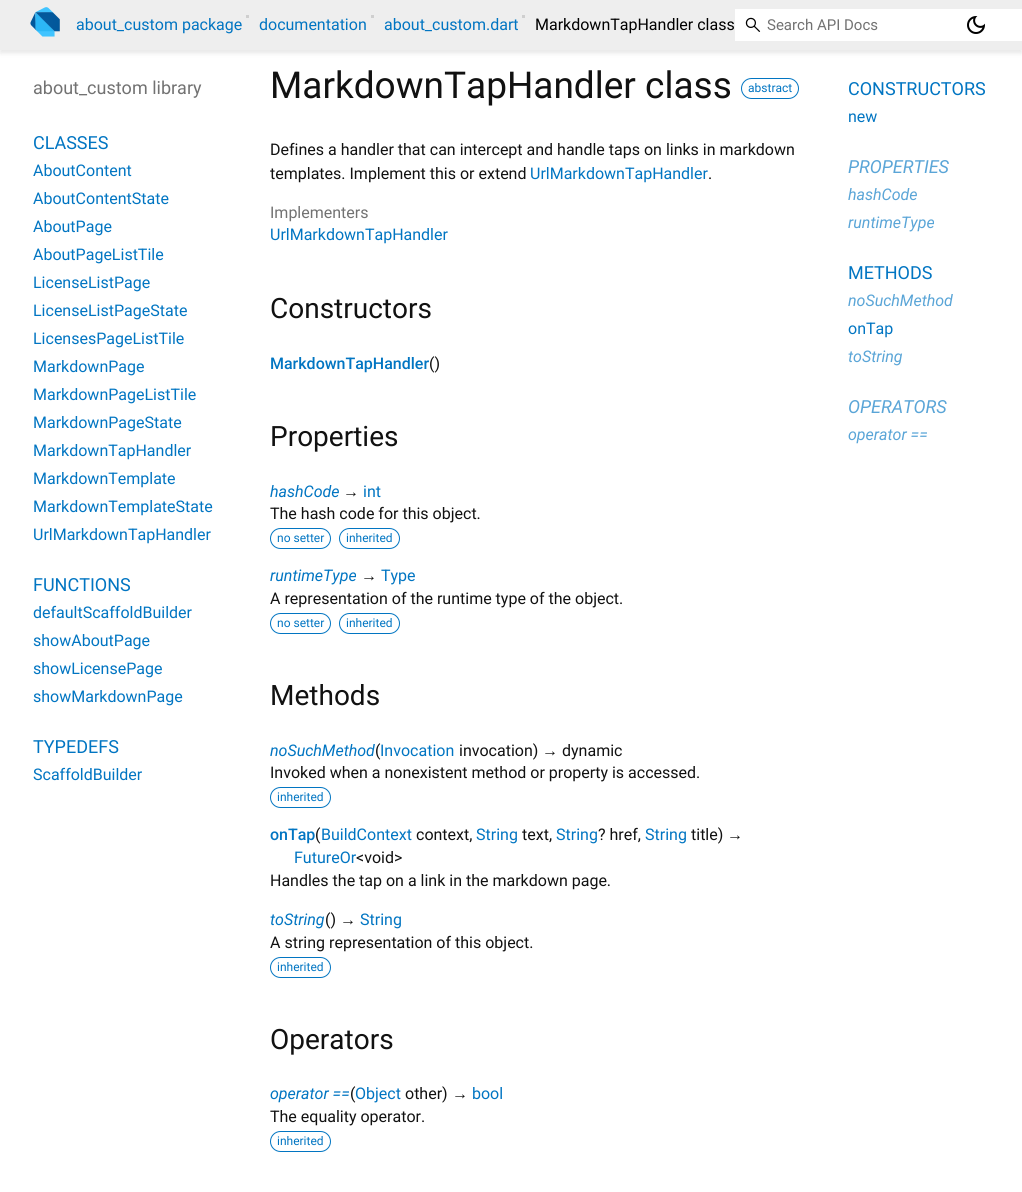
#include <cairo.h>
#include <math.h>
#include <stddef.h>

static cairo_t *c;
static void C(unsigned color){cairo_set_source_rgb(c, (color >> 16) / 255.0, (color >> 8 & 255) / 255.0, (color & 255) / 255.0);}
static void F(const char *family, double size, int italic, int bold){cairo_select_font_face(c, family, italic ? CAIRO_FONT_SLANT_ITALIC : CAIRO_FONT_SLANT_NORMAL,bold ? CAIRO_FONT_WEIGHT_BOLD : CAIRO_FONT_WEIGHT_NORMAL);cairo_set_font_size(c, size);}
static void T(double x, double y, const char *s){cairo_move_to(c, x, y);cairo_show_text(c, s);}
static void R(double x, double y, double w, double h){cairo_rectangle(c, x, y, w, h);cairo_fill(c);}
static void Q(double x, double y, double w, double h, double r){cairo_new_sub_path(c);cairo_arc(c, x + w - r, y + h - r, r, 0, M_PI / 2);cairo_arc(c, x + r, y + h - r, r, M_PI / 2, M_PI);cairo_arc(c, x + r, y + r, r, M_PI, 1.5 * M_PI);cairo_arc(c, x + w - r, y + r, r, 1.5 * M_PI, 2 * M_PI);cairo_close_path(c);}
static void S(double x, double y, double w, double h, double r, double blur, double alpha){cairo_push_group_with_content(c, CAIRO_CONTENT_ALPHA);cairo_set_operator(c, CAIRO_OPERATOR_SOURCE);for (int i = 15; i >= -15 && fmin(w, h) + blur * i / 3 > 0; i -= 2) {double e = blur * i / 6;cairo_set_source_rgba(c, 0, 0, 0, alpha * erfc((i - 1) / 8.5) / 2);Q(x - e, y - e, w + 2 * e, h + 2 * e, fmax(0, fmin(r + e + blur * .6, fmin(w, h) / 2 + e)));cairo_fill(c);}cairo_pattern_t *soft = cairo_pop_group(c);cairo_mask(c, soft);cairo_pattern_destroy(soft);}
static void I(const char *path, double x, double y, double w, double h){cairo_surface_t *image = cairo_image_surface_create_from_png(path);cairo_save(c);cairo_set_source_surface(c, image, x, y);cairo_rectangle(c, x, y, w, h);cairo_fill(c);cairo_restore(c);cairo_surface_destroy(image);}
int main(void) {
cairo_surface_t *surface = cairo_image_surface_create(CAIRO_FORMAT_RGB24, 1022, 1192);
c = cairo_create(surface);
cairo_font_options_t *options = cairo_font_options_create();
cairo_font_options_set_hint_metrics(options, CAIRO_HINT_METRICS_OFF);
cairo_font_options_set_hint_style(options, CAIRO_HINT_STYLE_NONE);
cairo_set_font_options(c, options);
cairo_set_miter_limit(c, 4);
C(0xffffff);
cairo_paint(c);
C(0x000000);
S(0,3,1022,50,0,2.5,.1);
C(0xeeeeee);
R(0,0,1022,50);
I("1.png",30,7,30,30);
F("Roboto",16,0,0);
C(0x0175c2);
T(76,30,"about_custom package");
C(0xcfcfcf);
R(246,15,3,3);
C(0x0175c2);
T(259,30,"documentation");
C(0xcfcfcf);
R(371,15,3,3);
C(0x0175c2);
T(384,30,"about_custom.dart");
C(0xcfcfcf);
R(522,15,3,3);
C(0x000000);
T(535,30,"MarkdownTapHandler class");
C(0xffffff);
R(735,9,287,32);
I("2.png",745,17,16,15);
F("Roboto",15,0,0);
C(0x727272);
T(767,30,"Search API Docs");
I("3.png",967,16,18,18);
F("Roboto",18,0,0);
T(33,94,"about_custom library");
C(0x0175c2);
T(33,149,"CLASSES");
F("Roboto",16,0,0);
T(33,176,"AboutContent");
T(33,204,"AboutContentState");
T(33,232,"AboutPage");
T(33,260,"AboutPageListTile");
T(33,288,"LicenseListPage");
T(33,316,"LicenseListPageState");
T(33,344,"LicensesPageListTile");
T(33,372,"MarkdownPage");
T(33,400,"MarkdownPageListTile");
T(33,428,"MarkdownPageState");
T(33,456,"MarkdownTapHandler");
T(33,484,"MarkdownTemplate");
T(33,512,"MarkdownTemplateState");
T(33,540,"UrlMarkdownTapHandler");
F("Roboto",18,0,0);
T(33,591,"FUNCTIONS");
F("Roboto",16,0,0);
T(33,618,"defaultScaffoldBuilder");
T(33,646,"showAboutPage");
T(33,674,"showLicensePage");
T(33,702,"showMarkdownPage");
F("Roboto",18,0,0);
T(33,753,"TYPEDEFS");
F("Roboto",16,0,0);
T(33,780,"ScaffoldBuilder");
F("Roboto",37,0,0);
C(0x111111);
T(270,98,"MarkdownTapHandler class");
Q(741.5,78.5,57,20,10);
C(0x0175c2);
cairo_set_line_width(c,1);
cairo_stroke(c);
F("Roboto",12,0,0);
T(748,92,"abstract");
F("Roboto",16,0,0);
C(0x111111);
T(270,155,"Defines a handler that can intercept and handle taps on links in markdown");
T(270,179,"templates. Implement this or extend");
C(0x0175c2);
T(530,179,"UrlMarkdownTapHandler");
C(0x111111);
T(708,179,".");
C(0x727272);
T(270,218,"Implementers");
C(0x0175c2);
T(270,240,"UrlMarkdownTapHandler");
F("Roboto",28,0,0);
C(0x111111);
T(270,318,"Constructors");
F("Roboto Medium",16,0,0);
C(0x0175c2);
T(270,369,"MarkdownTapHandler");
F("Roboto",16,0,0);
C(0x111111);
T(429,369,"()");
F("Roboto",28,0,0);
T(270,446,"Properties");
F("Roboto",16,1,0);
C(0x0175c2);
T(270,497,"hashCode");
F("Liberation Sans",16,0,0);
C(0x111111);
T(343,497,"→");
F("Roboto",16,0,0);
C(0x0175c2);
T(363,497,"int");
C(0x111111);
T(270,519,"The hash code for this object.");
Q(270.5,528.5,60,20,10);
C(0x0175c2);
cairo_stroke(c);
F("Roboto",12,0,0);
T(277,542,"no setter");
Q(339.5,528.5,60,20,10);
cairo_stroke(c);
T(346,542,"inherited");
F("Roboto",16,1,0);
T(270,581,"runtimeType");
F("Liberation Sans",16,0,0);
C(0x111111);
T(361,581,"→");
F("Roboto",16,0,0);
C(0x0175c2);
T(381,581,"Type");
C(0x111111);
T(270,604,"A representation of the runtime type of the object.");
Q(270.5,613.5,60,20,10);
C(0x0175c2);
cairo_stroke(c);
F("Roboto",12,0,0);
T(277,627,"no setter");
Q(339.5,613.5,60,20,10);
cairo_stroke(c);
T(346,627,"inherited");
F("Roboto",28,0,0);
C(0x111111);
T(270,705,"Methods");
F("Roboto",16,1,0);
C(0x0175c2);
T(270,756,"noSuchMethod");
F("Roboto",16,0,0);
C(0x111111);
T(375,756,"(");
C(0x0175c2);
T(380,756,"Invocation");
C(0x111111);
T(459,756,"invocation)");
F("Liberation Sans",16,0,0);
T(542,756,"→");
F("Roboto",16,0,0);
T(562,756,"dynamic");
T(270,778,"Invoked when a nonexistent method or property is accessed.");
Q(270.5,787.5,60,20,10);
C(0x0175c2);
cairo_stroke(c);
F("Roboto",12,0,0);
T(277,801,"inherited");
F("Roboto Medium",16,0,0);
T(270,840,"onTap");
F("Roboto",16,0,0);
C(0x111111);
T(315,840,"(");
C(0x0175c2);
T(321,840,"BuildContext");
C(0x111111);
T(416,840,"context,");
C(0x0175c2);
T(476,840,"String");
C(0x111111);
T(522,840,"text,");
C(0x0175c2);
T(556,840,"String");
C(0x111111);
T(598,840,"? href,");
C(0x0175c2);
T(645,840,"String");
C(0x111111);
T(691,840,"title)");
F("Liberation Sans",16,0,0);
T(727,840,"→");
F("Roboto",16,0,0);
C(0x0175c2);
T(294,863,"FutureOr");
C(0x111111);
T(356,863,"<void>");
T(270,886,"Handles the tap on a link in the markdown page.");
F("Roboto",16,1,0);
C(0x0175c2);
T(270,925,"toString");
F("Roboto",16,0,0);
C(0x111111);
T(325,925,"()");
F("Liberation Sans",16,0,0);
T(340,925,"→");
F("Roboto",16,0,0);
C(0x0175c2);
T(360,925,"String");
C(0x111111);
T(270,948,"A string representation of this object.");
Q(270.5,957.5,60,20,10);
C(0x0175c2);
cairo_stroke(c);
F("Roboto",12,0,0);
T(277,971,"inherited");
F("Roboto",28,0,0);
C(0x111111);
T(270,1049,"Operators");
F("Roboto",16,1,0);
C(0x0175c2);
T(270,1099,"operator ==");
F("Roboto",16,0,0);
C(0x111111);
T(350,1099,"(");
C(0x0175c2);
T(355,1099,"Object");
C(0x111111);
T(405,1099,"other)");
F("Liberation Sans",16,0,0);
T(452,1099,"→");
F("Roboto",16,0,0);
C(0x0175c2);
T(472,1099,"bool");
C(0x111111);
T(270,1122,"The equality operator.");
Q(270.5,1131.5,60,20,10);
C(0x0175c2);
cairo_stroke(c);
F("Roboto",12,0,0);
T(277,1145,"inherited");
F("Roboto",18,0,0);
T(848,95,"CONSTRUCTORS");
F("Roboto",16,0,0);
T(848,122,"new");
F("Roboto",18,1,0);
C(0x5aa5d7);
T(848,173,"PROPERTIES");
F("Roboto",16,1,0);
T(848,200,"hashCode");
T(848,228,"runtimeType");
F("Roboto",18,0,0);
C(0x0175c2);
T(848,279,"METHODS");
F("Roboto",16,1,0);
C(0x5aa5d7);
T(848,306,"noSuchMethod");
F("Roboto",16,0,0);
C(0x0175c2);
T(848,334,"onTap");
F("Roboto",16,1,0);
C(0x5aa5d7);
T(848,362,"toString");
F("Roboto",18,1,0);
T(848,413,"OPERATORS");
F("Roboto",16,1,0);
T(848,440,"operator ==");
cairo_surface_write_to_png(surface, "o.png");
cairo_font_options_destroy(options);
cairo_destroy(c);
cairo_surface_destroy(surface);
return 0;
}
